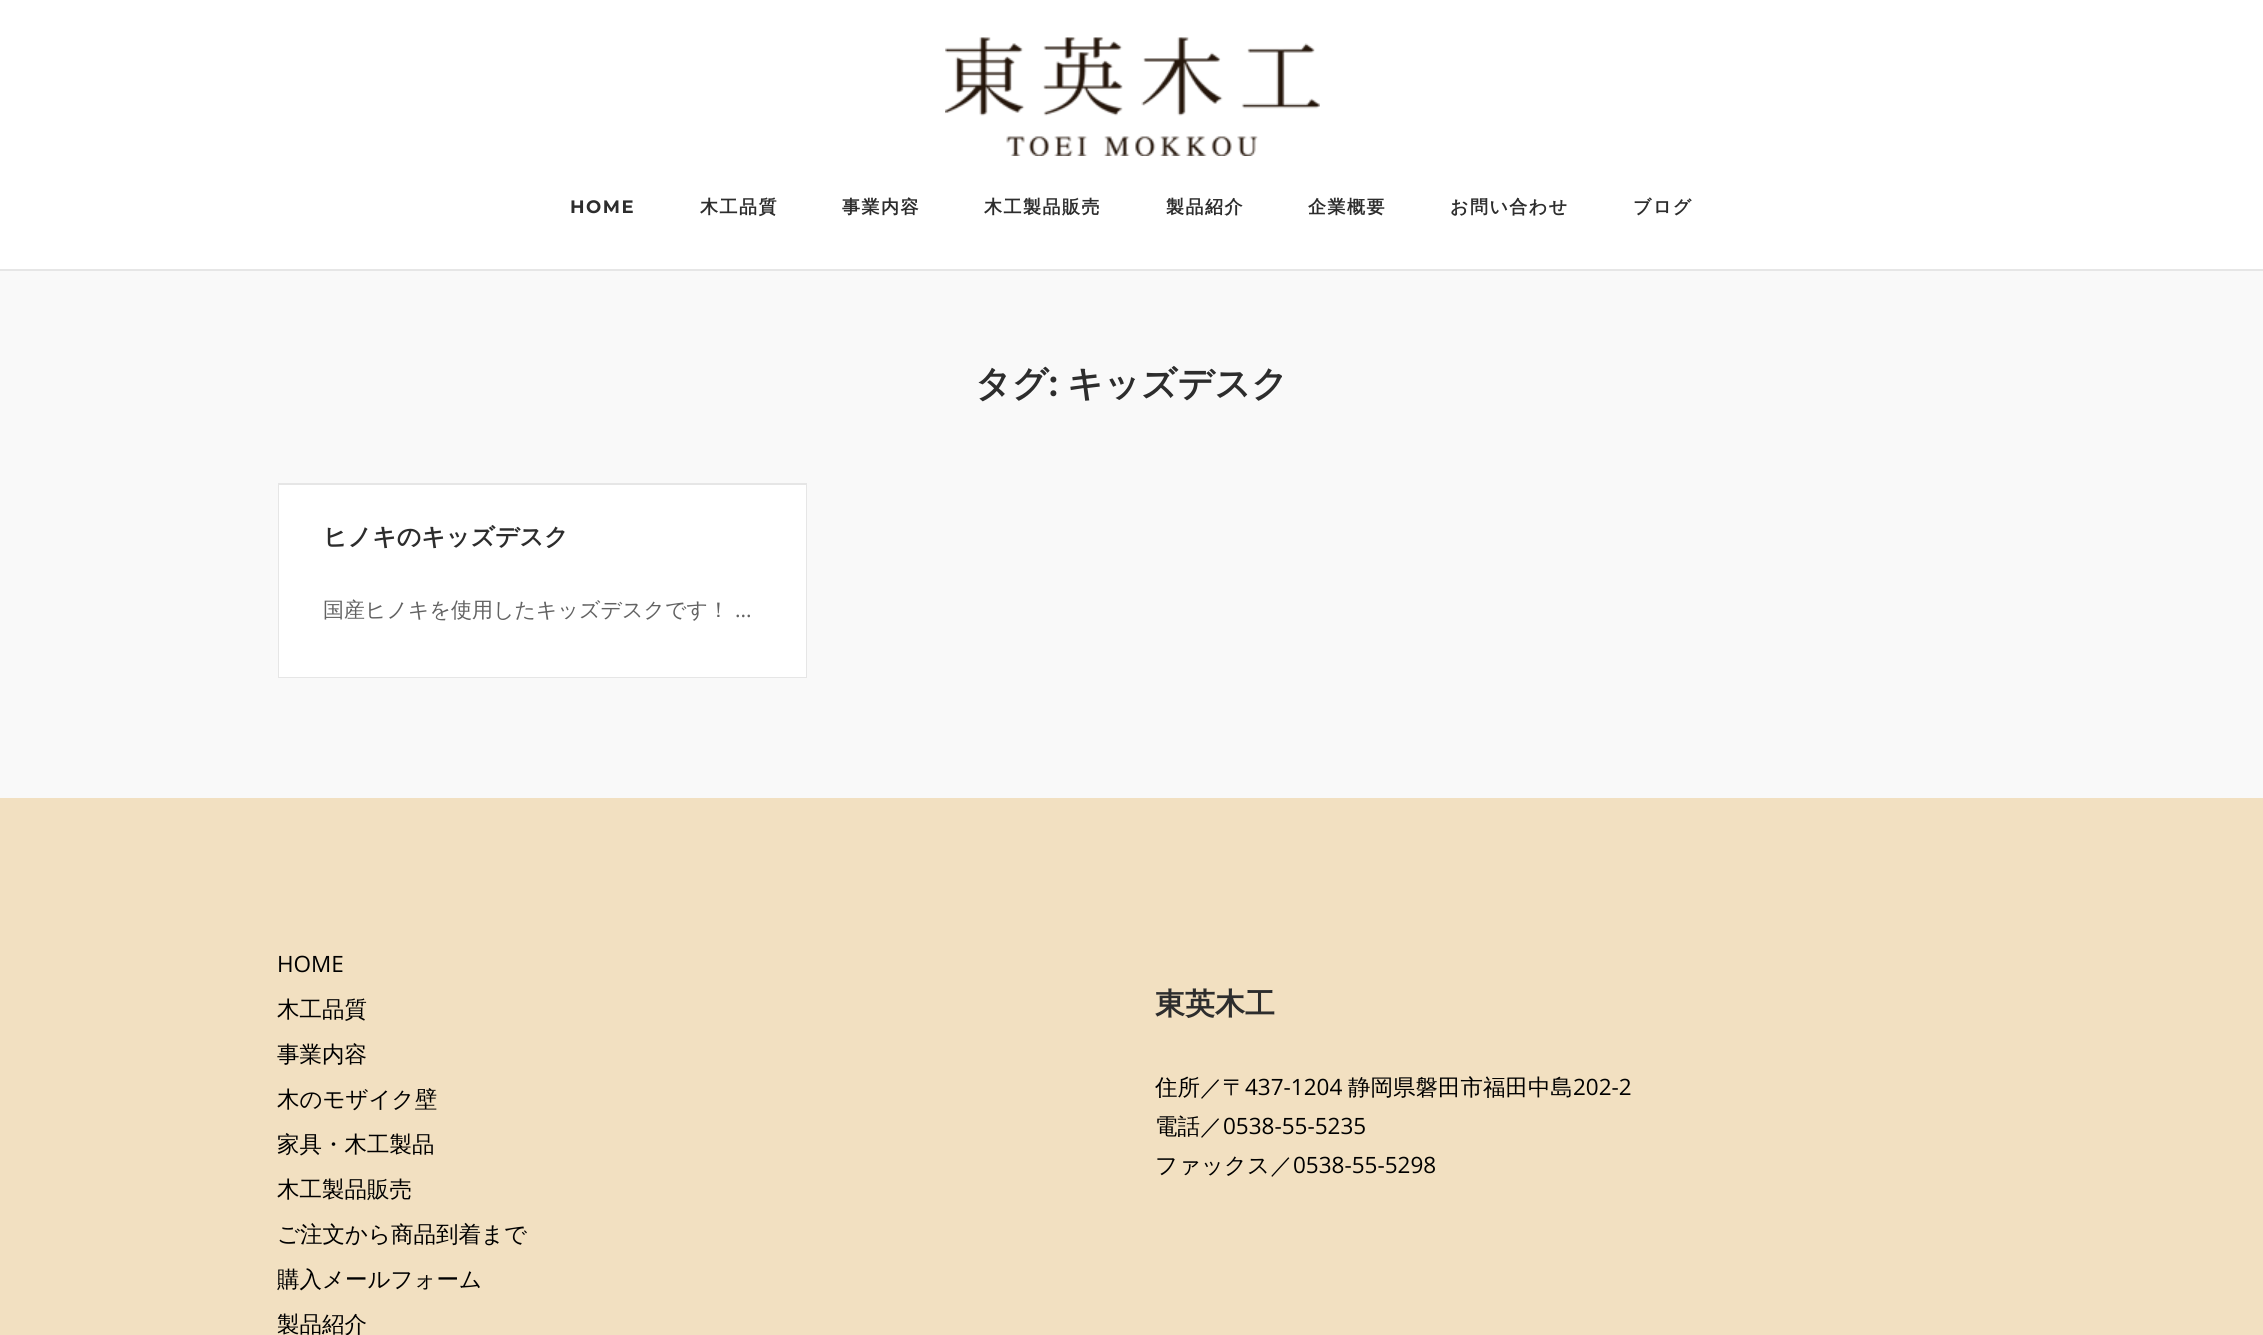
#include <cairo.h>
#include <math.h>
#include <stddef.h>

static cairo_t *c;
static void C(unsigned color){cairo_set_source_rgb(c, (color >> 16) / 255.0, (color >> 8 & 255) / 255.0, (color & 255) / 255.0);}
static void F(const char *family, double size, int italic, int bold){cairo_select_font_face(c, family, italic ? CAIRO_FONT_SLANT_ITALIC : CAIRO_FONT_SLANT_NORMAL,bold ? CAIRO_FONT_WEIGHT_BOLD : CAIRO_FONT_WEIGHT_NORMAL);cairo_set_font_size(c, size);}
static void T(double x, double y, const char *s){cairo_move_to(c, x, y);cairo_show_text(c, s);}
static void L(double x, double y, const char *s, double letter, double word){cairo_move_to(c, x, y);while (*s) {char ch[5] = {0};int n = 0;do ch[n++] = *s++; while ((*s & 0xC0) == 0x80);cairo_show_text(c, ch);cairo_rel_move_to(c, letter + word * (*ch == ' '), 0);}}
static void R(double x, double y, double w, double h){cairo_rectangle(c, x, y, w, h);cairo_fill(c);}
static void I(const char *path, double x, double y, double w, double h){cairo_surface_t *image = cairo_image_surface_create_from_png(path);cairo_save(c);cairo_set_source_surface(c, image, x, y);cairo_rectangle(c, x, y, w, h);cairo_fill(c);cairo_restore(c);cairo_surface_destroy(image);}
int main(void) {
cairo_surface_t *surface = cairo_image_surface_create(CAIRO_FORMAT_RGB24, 2263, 1335);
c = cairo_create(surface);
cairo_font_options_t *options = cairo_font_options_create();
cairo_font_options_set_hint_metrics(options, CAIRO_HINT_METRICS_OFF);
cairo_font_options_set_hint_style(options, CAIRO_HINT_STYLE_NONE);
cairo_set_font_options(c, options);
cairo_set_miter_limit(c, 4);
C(0xf9f9f9);
cairo_paint(c);
C(0xffffff);
R(0,0,2263,269);
C(0xe6e6e6);
R(0,269,2263,2);
I("1.png",945,37,375,119);
F("Montserrat",18,0,1);
C(0x2d2d2d);
L(570,213,"HOME",1.5,0);
F("WenQuanYi Zen Hei",18,0,1);
L(700,213,"木工品質",1.5,0);
L(842,213,"事業内容",1.5,0);
L(984,213,"木工製品販売",1.5,0);
L(1166,213,"製品紹介",1.5,0);
L(1308,213,"企業概要",1.5,0);
L(1450,213,"お問い合わせ",1.5,0);
L(1633,213,"ブログ",1.5,0);
F("WenQuanYi Zen Hei",36,0,1);
T(975,396,"タグ");
F("Montserrat SemiBold",36,0,0);
T(1049,396,":");
F("WenQuanYi Zen Hei",36,0,1);
T(1067,396,"キッズデスク");
cairo_rectangle(c,279,484,527,193);
C(0xe6e6e6);
cairo_stroke(c);
C(0xffffff);
R(279,485,527,192);
F("WenQuanYi Zen Hei",24,0,1);
C(0x2d2d2d);
T(323,545,"ヒノキのキッズデスク");
F("WenQuanYi Zen Hei Medium",21,0,0);
C(0x626262);
T(323,617,"国産ヒノキを使用したキッズデスクです！");
F("Open Sans",21,0,0);
T(735,617,"...");
C(0xf2e0c1);
R(0,798,2263,537);
F("Open Sans",22.5,0,0);
C(0x000000);
T(277,972,"HOME");
F("WenQuanYi Zen Hei Medium",22.5,0,0);
T(277,1017,"木工品質");
T(277,1062,"事業内容");
T(277,1107,"木のモザイク壁");
T(277,1152,"家具・木工製品");
T(277,1197,"木工製品販売");
T(277,1242,"ご注文から商品到着まで");
T(277,1287,"購入メールフォーム");
T(277,1332,"製品紹介");
F("WenQuanYi Zen Hei",30,0,1);
C(0x2d2d2d);
T(1155,1014,"東英木工");
F("WenQuanYi Zen Hei Medium",22.5,0,0);
C(0x000000);
T(1155,1095,"住所／〒");
F("Open Sans",22.5,0,0);
T(1245,1095,"437-1204");
F("WenQuanYi Zen Hei Medium",22.5,0,0);
T(1348,1095,"静岡県磐田市福田中島");
F("Open Sans",22.5,0,0);
T(1573,1095,"202-2");
F("WenQuanYi Zen Hei Medium",22.5,0,0);
T(1155,1134,"電話／");
F("Open Sans",22.5,0,0);
T(1223,1134,"0538-55-5235");
F("WenQuanYi Zen Hei Medium",22.5,0,0);
T(1155,1173,"ファックス／");
F("Open Sans",22.5,0,0);
T(1293,1173,"0538-55-5298");
cairo_surface_write_to_png(surface, "o.png");
cairo_font_options_destroy(options);
cairo_destroy(c);
cairo_surface_destroy(surface);
return 0;
}
